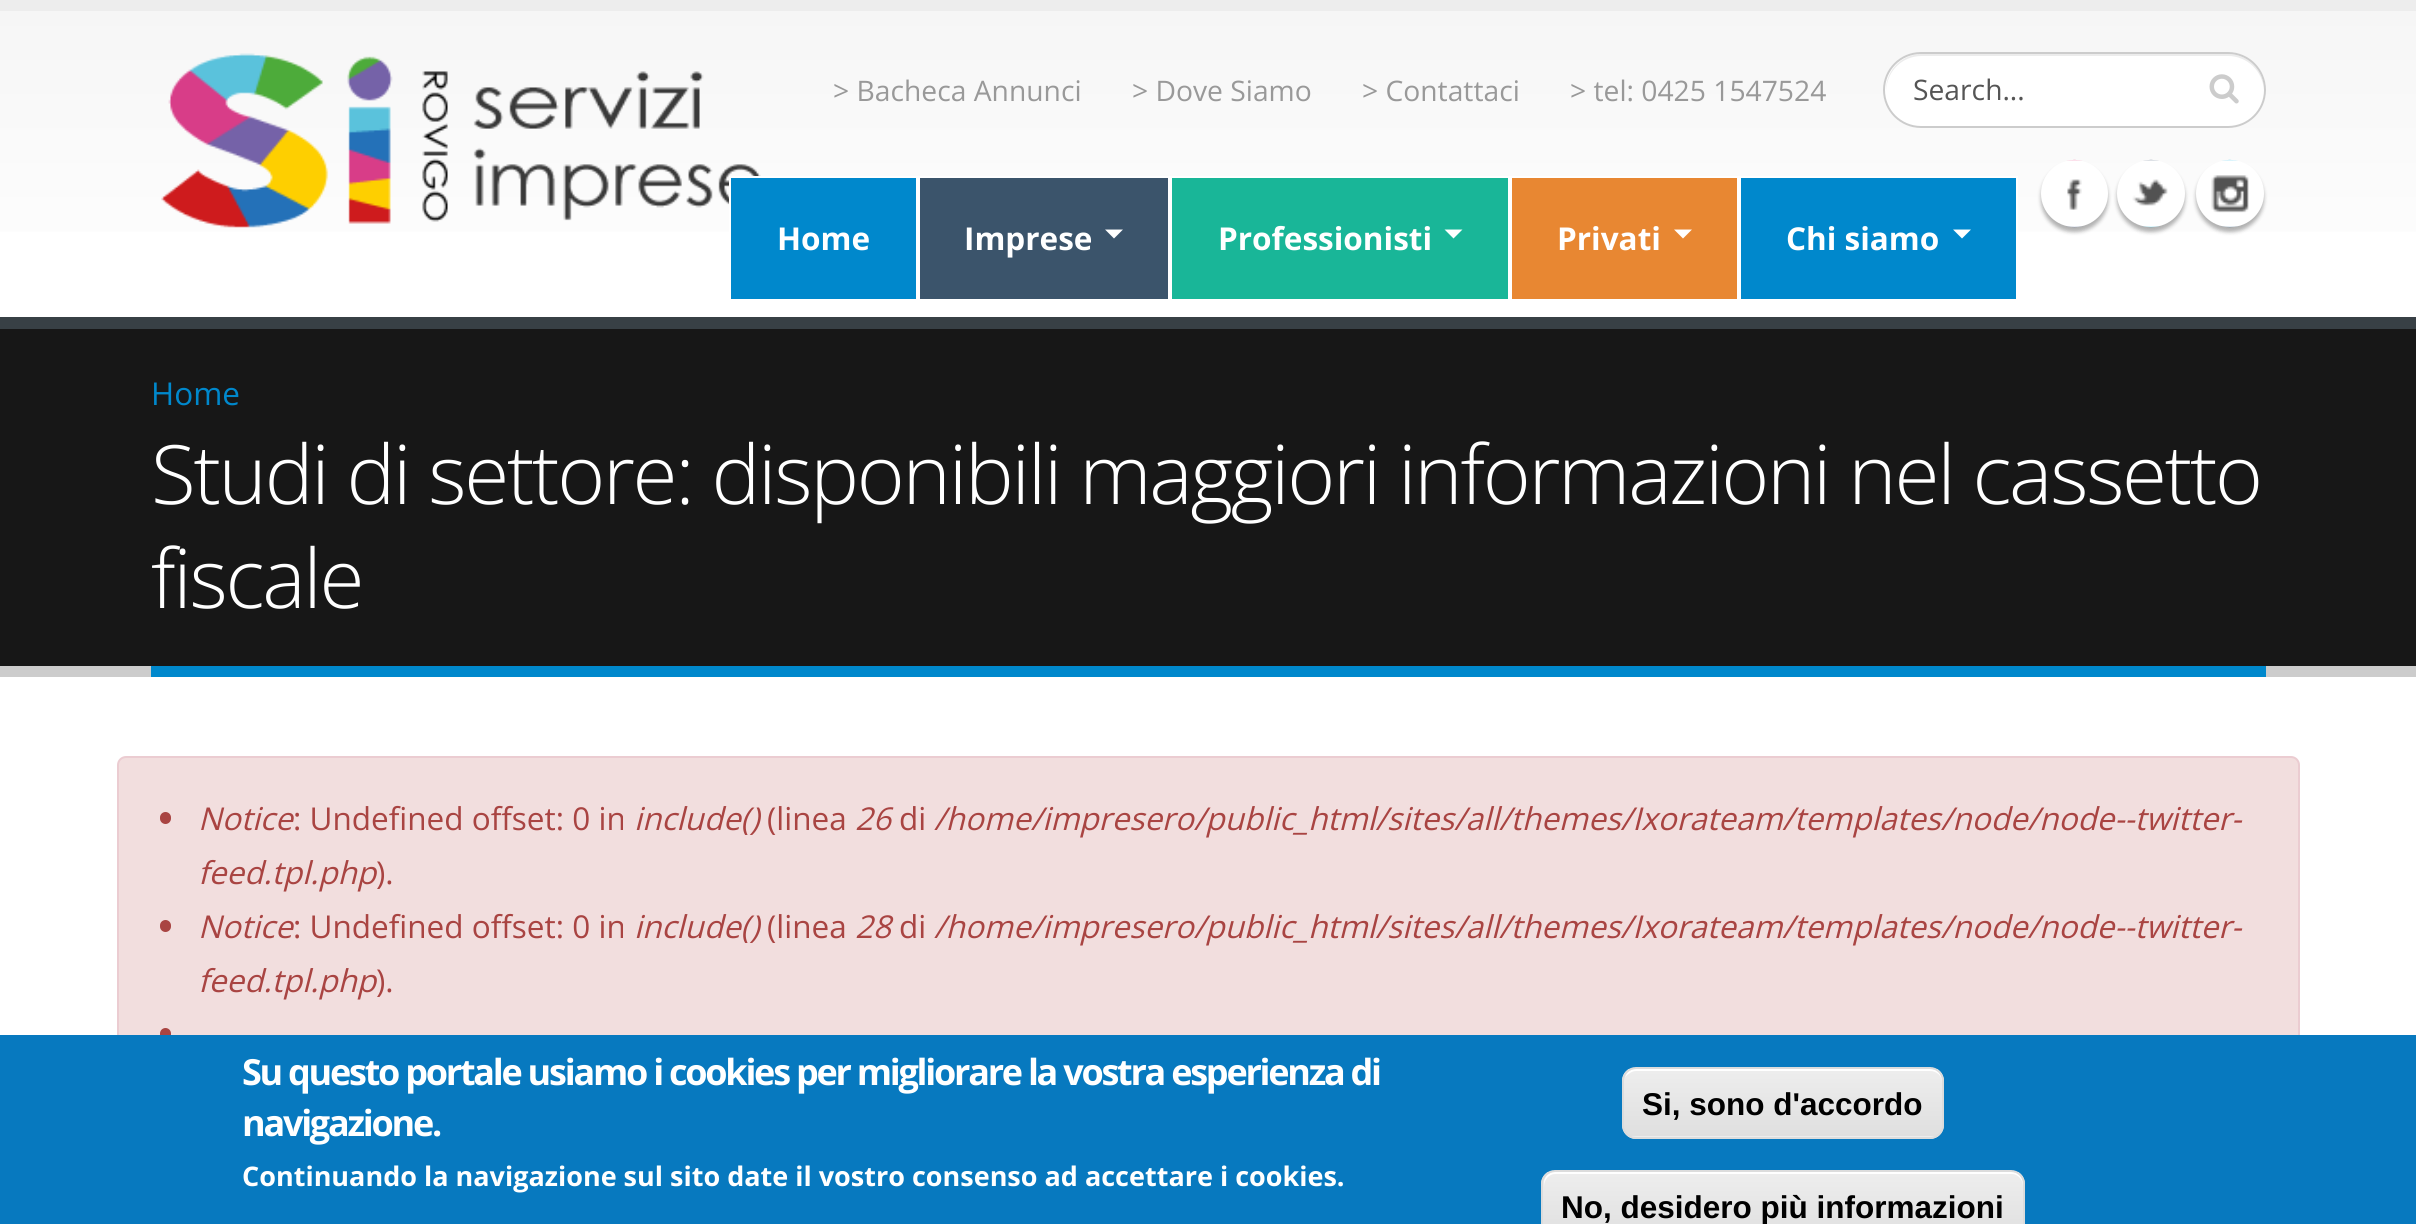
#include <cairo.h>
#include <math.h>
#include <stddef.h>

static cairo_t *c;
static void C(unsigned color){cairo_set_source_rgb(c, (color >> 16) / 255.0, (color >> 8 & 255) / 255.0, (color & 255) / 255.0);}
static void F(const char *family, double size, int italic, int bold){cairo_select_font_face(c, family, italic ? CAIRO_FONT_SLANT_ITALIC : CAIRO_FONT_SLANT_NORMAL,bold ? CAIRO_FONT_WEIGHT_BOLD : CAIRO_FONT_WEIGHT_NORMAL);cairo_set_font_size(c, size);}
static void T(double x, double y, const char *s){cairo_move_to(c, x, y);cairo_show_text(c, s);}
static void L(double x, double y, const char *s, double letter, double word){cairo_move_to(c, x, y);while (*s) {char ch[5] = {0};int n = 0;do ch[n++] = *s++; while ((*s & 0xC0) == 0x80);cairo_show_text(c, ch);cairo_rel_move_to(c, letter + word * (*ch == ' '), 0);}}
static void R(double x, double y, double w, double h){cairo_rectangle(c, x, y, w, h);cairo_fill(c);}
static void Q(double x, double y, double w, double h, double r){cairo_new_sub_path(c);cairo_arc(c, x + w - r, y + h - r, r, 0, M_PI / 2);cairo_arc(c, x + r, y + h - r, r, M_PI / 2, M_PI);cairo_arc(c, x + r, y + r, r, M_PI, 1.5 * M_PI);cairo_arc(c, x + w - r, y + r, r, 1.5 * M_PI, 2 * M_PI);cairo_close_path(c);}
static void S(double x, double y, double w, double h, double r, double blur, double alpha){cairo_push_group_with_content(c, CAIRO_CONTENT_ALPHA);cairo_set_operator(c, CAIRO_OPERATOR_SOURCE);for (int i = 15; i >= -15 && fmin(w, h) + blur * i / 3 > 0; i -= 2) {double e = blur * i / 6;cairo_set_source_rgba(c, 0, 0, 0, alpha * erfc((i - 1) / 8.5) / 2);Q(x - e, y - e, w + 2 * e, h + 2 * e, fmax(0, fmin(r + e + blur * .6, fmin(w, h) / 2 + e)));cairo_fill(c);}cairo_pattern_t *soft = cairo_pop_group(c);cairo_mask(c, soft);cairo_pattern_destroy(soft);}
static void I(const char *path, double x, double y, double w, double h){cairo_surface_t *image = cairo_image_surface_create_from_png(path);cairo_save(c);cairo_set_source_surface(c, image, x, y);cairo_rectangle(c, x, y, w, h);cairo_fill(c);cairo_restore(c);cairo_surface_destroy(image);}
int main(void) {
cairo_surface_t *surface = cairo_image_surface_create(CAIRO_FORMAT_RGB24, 2416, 1224);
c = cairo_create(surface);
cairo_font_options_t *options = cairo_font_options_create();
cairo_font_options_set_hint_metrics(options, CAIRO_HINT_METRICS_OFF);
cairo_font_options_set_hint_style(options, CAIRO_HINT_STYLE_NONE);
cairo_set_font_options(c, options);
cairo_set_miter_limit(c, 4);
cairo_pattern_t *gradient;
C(0xffffff);
cairo_paint(c);
gradient = cairo_pattern_create_linear(1208,11,1208,317);
cairo_pattern_add_color_stop_rgba(gradient,0,0.965,0.965,0.965,1);
cairo_pattern_add_color_stop_rgba(gradient,1,1,1,1,1);
cairo_set_source(c,gradient);
cairo_pattern_destroy(gradient);
R(0,11,2416,221);
C(0xededed);
R(0,0,2416,11);
I("1.png",161,53,600,175);
F("Open Sans",28.25,0,0);
C(0x999999);
T(833,101,"> Bacheca Annunci");
T(1132,101,"> Dove Siamo");
T(1362,101,"> Contattaci");
T(1570,101,"> tel: 0425 1547524");
C(0xffffff);
Q(1883,52,383,76,38);
cairo_fill(c);
C(0xececec);
cairo_new_path(c);
cairo_move_to(c,1922,56);
cairo_line_to(c,2228,56);
cairo_curve_to(c,2247,56,2263,71,2264,91);
cairo_line_to(c,2264,90);
cairo_curve_to(c,2264,70,2248,54,2228,54);
cairo_line_to(c,1922,54);
cairo_curve_to(c,1902,54,1886,70,1886,90);
cairo_line_to(c,1886,91);
cairo_curve_to(c,1887,71,1902,56,1922,56);
cairo_close_path(c);
cairo_fill(c);
Q(1884,53,381,74,37);
C(0xcccccc);
cairo_stroke(c);
C(0x555555);
T(1913,100,"Search...");
I("2.png",2209,74,30,30);
C(0x0088cc);
R(731,178,1285,121);
C(0xffffff);
R(729,176,1289,2);
R(916,176,4,123);
R(729,176,2,56);
F("Open Sans",31.5,0,1);
T(777,250,"Home");
C(0x3b546b);
R(920,178,248,121);
C(0xffffff);
R(1168,176,4,123);
T(964,250,"Imprese");
cairo_new_path(c);
cairo_move_to(c,1105,229.5);
cairo_line_to(c,1123,229.5);
cairo_line_to(c,1114,238.5);
cairo_close_path(c);
cairo_fill(c);
C(0x19b698);
R(1172,178,336,121);
C(0xffffff);
R(1508,176,4,123);
T(1218,250,"Professionisti");
cairo_new_path(c);
cairo_move_to(c,1444.5,229.5);
cairo_line_to(c,1462.5,229.5);
cairo_line_to(c,1453.5,238.5);
cairo_close_path(c);
cairo_fill(c);
C(0xe88732);
R(1512,178,225,121);
C(0xffffff);
R(1737,176,4,123);
T(1557,250,"Privati");
cairo_new_path(c);
cairo_move_to(c,1674,229.5);
cairo_line_to(c,1692,229.5);
cairo_line_to(c,1683,238.5);
cairo_close_path(c);
cairo_fill(c);
R(2016,176,2,56);
T(1786,250,"Chi siamo");
cairo_new_path(c);
cairo_move_to(c,1953,229.5);
cairo_line_to(c,1971,229.5);
cairo_line_to(c,1962,238.5);
cairo_close_path(c);
cairo_fill(c);
C(0x000000);
S(2041,164,67,68,33.5,2,.3);
C(0xffffff);
cairo_arc(c,2074.5,193.5,33.5,0,2 * M_PI);
cairo_fill(c);
I("3.png",2066,159,17,69);
C(0x000000);
S(2117,164,68,68,34,2,.3);
C(0xffffff);
Q(2117,160,68,67,33.5);
cairo_fill(c);
I("4.png",2132,159,36,69);
C(0x000000);
S(2196,164,68,68,34,2,.3);
C(0xffffff);
Q(2196,160,68,67,33.5);
cairo_fill(c);
I("5.png",2211,159,38,69);
C(0x171717);
R(0,329,2416,337);
C(0x384045);
R(0,317,2416,12);
C(0xcccccc);
R(0,666,2416,11);
F("Open Sans",31.5,0,0);
C(0x0088cc);
T(151,405,"Home");
R(151,666,2115,11);
F("Open Sans Light",81.9,0,0);
C(0xffffff);
L(151,504,"Studi di settore: disponibili maggiori informazioni nel cassetto",-2.25,0);
L(151,608,"fiscale",-2.25,0);
C(0xf2dede);
Q(118,757,2181,394,8);
cairo_fill_preserve(c);
C(0xebccd1);
cairo_stroke(c);
C(0xa94442);
Q(160,812,11,12,5.5);
cairo_fill(c);
F("Open Sans",31.5,1,0);
T(198,830,"Notice");
F("Open Sans",31.5,0,0);
T(293,830,": Undefined offset: 0 in");
F("Open Sans",31.5,1,0);
T(634,830,"include()");
F("Open Sans",31.5,0,0);
T(767,830,"(linea");
F("Open Sans",31.5,1,0);
T(855,830,"26");
F("Open Sans",31.5,0,0);
T(899,830,"di");
F("Open Sans",31.5,1,0);
T(934,830,"/home/impresero/public_html/sites/all/themes/Ixorateam/templates/node/node--twitter-");
T(198,884,"feed.tpl.php");
F("Open Sans",31.5,0,0);
T(376,884,").");
Q(160,920,11,12,5.5);
cairo_fill(c);
F("Open Sans",31.5,1,0);
T(198,938,"Notice");
F("Open Sans",31.5,0,0);
T(293,938,": Undefined offset: 0 in");
F("Open Sans",31.5,1,0);
T(634,938,"include()");
F("Open Sans",31.5,0,0);
T(767,938,"(linea");
F("Open Sans",31.5,1,0);
T(855,938,"28");
F("Open Sans",31.5,0,0);
T(899,938,"di");
F("Open Sans",31.5,1,0);
T(934,938,"/home/impresero/public_html/sites/all/themes/Ixorateam/templates/node/node--twitter-");
T(198,992,"feed.tpl.php");
F("Open Sans",31.5,0,0);
T(376,992,").");
Q(160,1028,11,12,5.5);
cairo_fill(c);
C(0x0779bf);
R(0,1035,2416,189);
F("Open Sans",36,0,1);
C(0xffffff);
L(242,1085,"Su questo portale usiamo i cookies per migliorare la vostra esperienza di",-2.25,0);
L(242,1136,"navigazione.",-2.25,0);
F("Open Sans",27,0,1);
T(242,1186,"Continuando la navigazione sul sito date il vostro consenso ad accettare i cookies.");
cairo_save(c);
Q(1622,1067,322,72,14);
cairo_clip(c);
gradient = cairo_pattern_create_linear(1625,1069,1625,1136);
cairo_pattern_add_color_stop_rgba(gradient,.05,0.929,0.929,0.929,1);
cairo_pattern_add_color_stop_rgba(gradient,1,0.875,0.875,0.875,1);
cairo_set_source(c,gradient);
cairo_pattern_destroy(gradient);
R(1622,1069,322,67);
gradient = cairo_pattern_create_linear(1625,1136,1625,1204);
cairo_pattern_add_color_stop_rgba(gradient,.05,0.929,0.929,0.929,1);
cairo_pattern_add_color_stop_rgba(gradient,1,0.875,0.875,0.875,1);
cairo_set_source(c,gradient);
cairo_pattern_destroy(gradient);
R(1622,1136,322,3);
cairo_restore(c);
cairo_new_path(c);
cairo_move_to(c,1636,1071);
cairo_line_to(c,1930,1071);
cairo_curve_to(c,1937,1071,1942,1076,1942,1082);
cairo_line_to(c,1942,1080);
cairo_curve_to(c,1942,1074,1937,1069,1931,1069);
cairo_line_to(c,1636,1069);
cairo_curve_to(c,1631,1069,1627,1072,1625,1077);
cairo_curve_to(c,1628,1074,1632,1071,1636,1071);
cairo_close_path(c);
cairo_fill(c);
Q(1623,1068,320,70,13);
C(0xdcdcdc);
cairo_stroke(c);
F("Liberation Sans",31.5,0,1);
C(0x000000);
T(1642,1115,"Si, sono d'accordo");
cairo_save(c);
Q(1541,1170,484,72,14);
cairo_clip(c);
gradient = cairo_pattern_create_linear(1544,1172,1544,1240);
cairo_pattern_add_color_stop_rgba(gradient,.05,0.929,0.929,0.929,1);
cairo_pattern_add_color_stop_rgba(gradient,1,0.875,0.875,0.875,1);
cairo_set_source(c,gradient);
cairo_pattern_destroy(gradient);
R(1541,1172,484,52);
cairo_restore(c);
C(0xffffff);
cairo_new_path(c);
cairo_move_to(c,1555,1174);
cairo_line_to(c,2012,1174);
cairo_curve_to(c,2018,1174,2023,1180,2023,1186);
cairo_line_to(c,2023,1183);
cairo_curve_to(c,2023,1177,2018,1172,2012,1172);
cairo_line_to(c,1555,1172);
cairo_curve_to(c,1549,1172,1544,1177,1544,1183);
cairo_line_to(c,1544,1186);
cairo_curve_to(c,1544,1180,1549,1174,1555,1174);
cairo_close_path(c);
cairo_fill(c);
Q(1542,1171,482,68,13);
C(0xdcdcdc);
cairo_stroke(c);
C(0x000000);
T(1561,1218,"No, desidero più informazioni");
cairo_surface_write_to_png(surface, "o.png");
cairo_font_options_destroy(options);
cairo_destroy(c);
cairo_surface_destroy(surface);
return 0;
}
